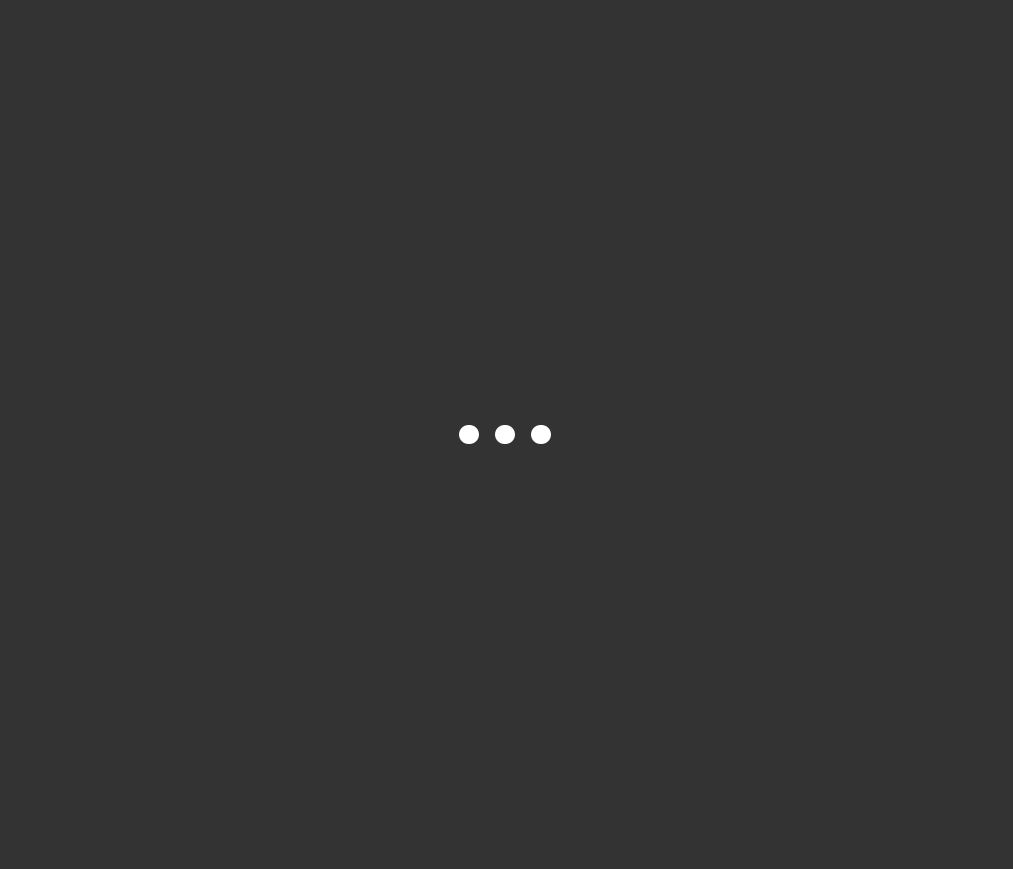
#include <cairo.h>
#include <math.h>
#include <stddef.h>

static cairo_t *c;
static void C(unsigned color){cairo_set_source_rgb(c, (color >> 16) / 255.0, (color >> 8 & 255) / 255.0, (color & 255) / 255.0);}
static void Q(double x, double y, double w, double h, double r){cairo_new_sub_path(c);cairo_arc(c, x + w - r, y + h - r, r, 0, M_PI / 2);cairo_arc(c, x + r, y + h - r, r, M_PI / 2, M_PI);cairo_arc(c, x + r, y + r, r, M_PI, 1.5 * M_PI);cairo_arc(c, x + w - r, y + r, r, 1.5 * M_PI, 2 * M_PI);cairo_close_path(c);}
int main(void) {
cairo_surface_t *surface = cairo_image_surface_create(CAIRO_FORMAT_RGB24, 1013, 869);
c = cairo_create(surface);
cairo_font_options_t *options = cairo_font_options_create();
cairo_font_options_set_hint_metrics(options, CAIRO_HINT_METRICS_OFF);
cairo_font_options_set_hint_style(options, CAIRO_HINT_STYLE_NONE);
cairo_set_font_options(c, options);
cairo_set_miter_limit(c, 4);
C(0x333333);
cairo_paint(c);
C(0xffffff);
Q(459,425,20,19,9.5);
cairo_fill(c);
Q(495,425,20,19,9.5);
cairo_fill(c);
Q(531,425,20,19,9.5);
cairo_fill(c);
cairo_surface_write_to_png(surface, "o.png");
cairo_font_options_destroy(options);
cairo_destroy(c);
cairo_surface_destroy(surface);
return 0;
}
